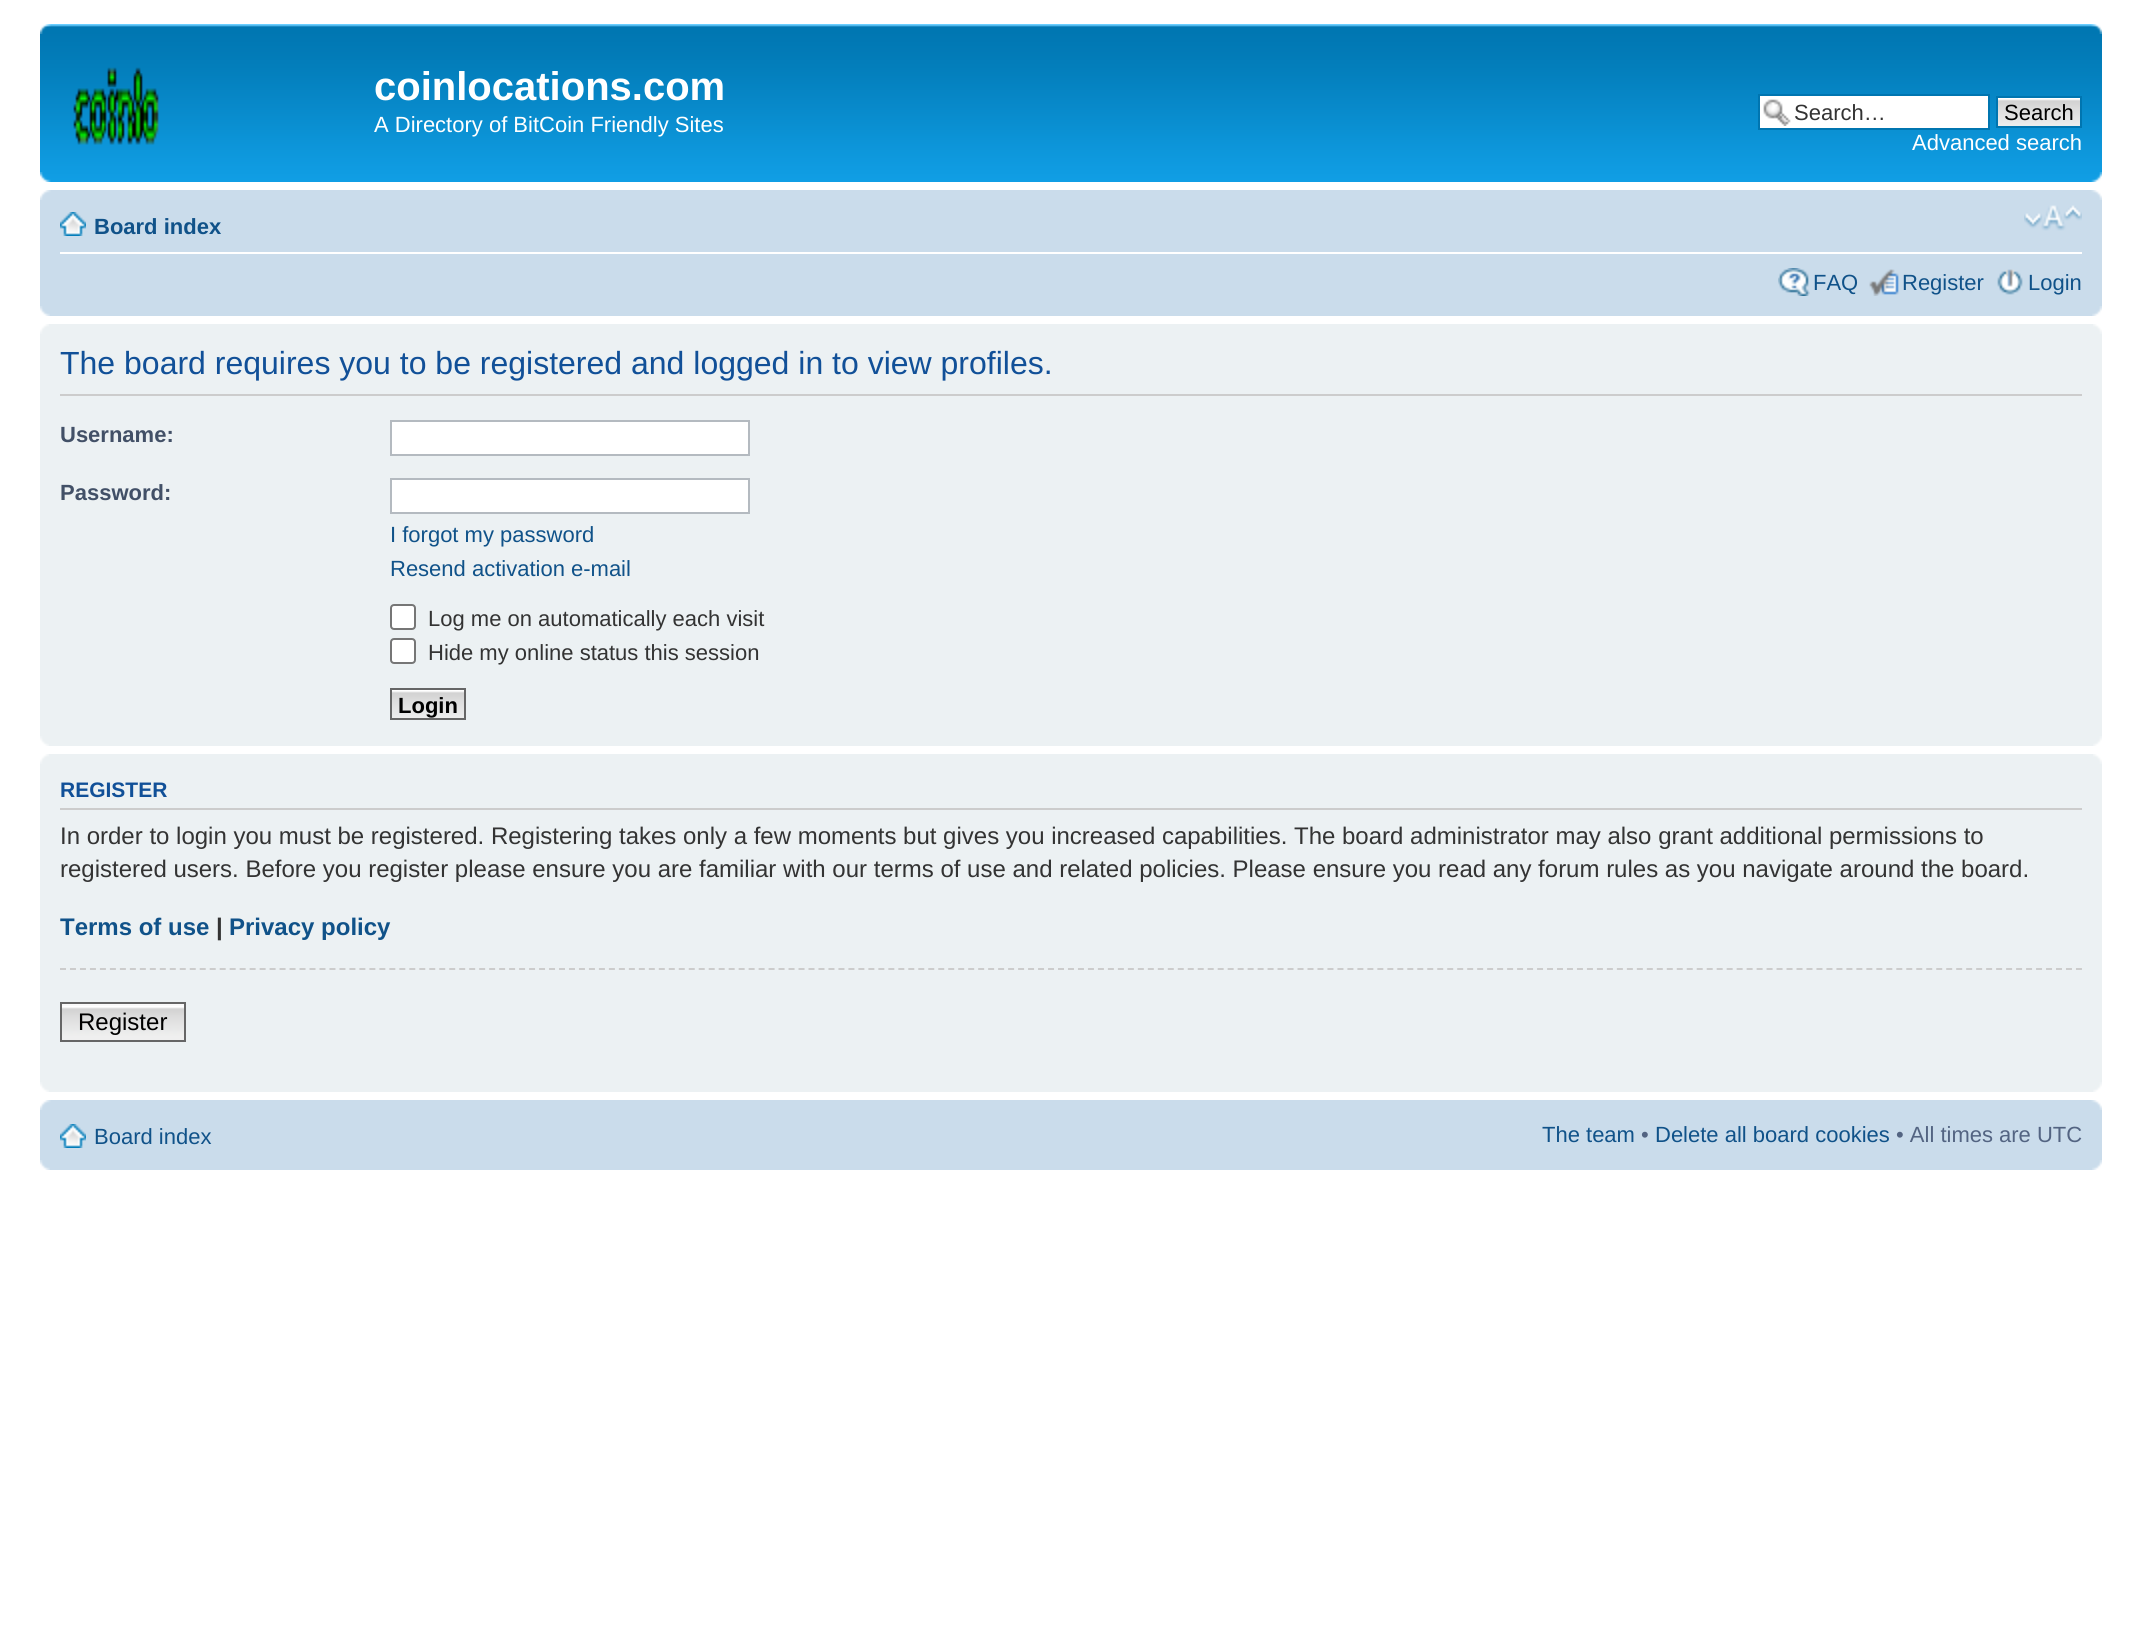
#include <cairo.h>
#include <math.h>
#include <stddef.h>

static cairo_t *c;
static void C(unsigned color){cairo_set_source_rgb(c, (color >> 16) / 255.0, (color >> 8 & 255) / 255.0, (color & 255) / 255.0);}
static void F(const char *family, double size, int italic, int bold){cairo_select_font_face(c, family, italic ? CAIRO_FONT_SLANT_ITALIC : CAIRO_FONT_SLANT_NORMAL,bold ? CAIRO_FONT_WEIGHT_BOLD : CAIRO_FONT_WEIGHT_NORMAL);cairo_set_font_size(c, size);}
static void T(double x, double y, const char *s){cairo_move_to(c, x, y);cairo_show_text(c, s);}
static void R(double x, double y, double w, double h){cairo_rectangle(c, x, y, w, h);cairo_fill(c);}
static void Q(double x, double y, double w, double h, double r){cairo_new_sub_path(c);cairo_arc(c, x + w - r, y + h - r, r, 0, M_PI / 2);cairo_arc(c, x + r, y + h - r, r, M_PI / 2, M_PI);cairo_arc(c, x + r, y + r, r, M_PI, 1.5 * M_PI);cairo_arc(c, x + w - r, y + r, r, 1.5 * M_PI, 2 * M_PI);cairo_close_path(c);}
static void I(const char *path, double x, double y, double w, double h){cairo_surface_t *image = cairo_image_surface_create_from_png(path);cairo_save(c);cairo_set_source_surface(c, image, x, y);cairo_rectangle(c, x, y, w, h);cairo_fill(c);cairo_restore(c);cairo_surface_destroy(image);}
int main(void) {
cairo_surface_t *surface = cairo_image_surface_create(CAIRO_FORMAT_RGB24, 2142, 1647);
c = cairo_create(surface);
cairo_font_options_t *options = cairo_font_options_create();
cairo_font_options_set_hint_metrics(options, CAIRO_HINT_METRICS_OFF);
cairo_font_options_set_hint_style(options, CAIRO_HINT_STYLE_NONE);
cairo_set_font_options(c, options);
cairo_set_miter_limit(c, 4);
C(0xffffff);
cairo_paint(c);
I("1.png",40,24,2062,158);
I("2.png",40,24,11,10);
I("3.png",2091,24,11,10);
I("4.png",73,67,86,78);
F("Liberation Sans",40,0,1);
C(0xffffff);
T(374,100,"coinlocations.com");
F("Liberation Sans",22,0,0);
T(374,132,"A Directory of BitCoin Friendly Sites");
R(1760,96,228,32);
I("5.png",1763,99,28,27);
cairo_rectangle(c,1759,95,230,34);
C(0x0075b0);
cairo_stroke(c);
C(0x333333);
T(1794,120,"Search…");
I("6.png",1998,98,82,28);
cairo_rectangle(c,1997,97,84,30);
C(0x0075b0);
cairo_stroke(c);
C(0x000000);
T(2004,120,"Search");
C(0xffffff);
T(1912,150,"Advanced search");
I("7.png",40,172,11,10);
I("8.png",2091,172,11,10);
C(0xcadceb);
R(40,190,2062,126);
I("9.png",40,190,11,10);
I("10.png",2091,190,11,10);
C(0xffffff);
R(60,252,2022,2);
I("11.png",60,212,26,24);
F("Liberation Sans",22,0,1);
C(0x105289);
T(94,234,"Board index");
I("12.png",2024,205,58,26);
I("13.png",1778,268,32,28);
F("Liberation Sans",22,0,0);
T(1813,290,"FAQ");
I("14.png",1869,269,30,27);
T(1902,290,"Register");
I("15.png",1997,269,26,26);
T(2028,290,"Login");
I("16.png",40,306,10,10);
I("17.png",2092,306,10,10);
C(0xecf1f3);
R(40,324,2062,422);
I("18.png",40,324,9,10);
I("19.png",2093,324,9,10);
C(0xcccccc);
R(60,394,2022,2);
F("Liberation Sans",32,0,0);
C(0x115098);
T(60,374,"The board requires you to be registered and logged in to view profiles.");
F("Liberation Sans",22,0,1);
C(0x425067);
T(60,442,"Username:");
C(0xffffff);
cairo_rectangle(c,391,421,358,34);
cairo_fill_preserve(c);
C(0xb4bac0);
cairo_stroke(c);
C(0x425067);
T(60,500,"Password:");
C(0xffffff);
cairo_rectangle(c,391,479,358,34);
cairo_fill_preserve(c);
C(0xb4bac0);
cairo_stroke(c);
F("Liberation Sans",22,0,0);
C(0x105289);
T(390,542,"I forgot my password");
T(390,576,"Resend activation e-mail");
C(0xffffff);
Q(391,605,24,24,3);
cairo_fill_preserve(c);
C(0x767676);
cairo_stroke(c);
C(0x333333);
T(428,626,"Log me on automatically each visit");
C(0xffffff);
Q(391,639,24,24,3);
cairo_fill_preserve(c);
C(0x767676);
cairo_stroke(c);
C(0x333333);
T(428,660,"Hide my online status this session");
I("20.png",392,690,72,28);
cairo_rectangle(c,391,689,74,30);
C(0x666666);
cairo_stroke(c);
F("Liberation Sans",22,0,1);
C(0x000000);
T(398,713,"Login");
I("21.png",40,736,9,10);
I("22.png",2093,736,9,10);
C(0xecf1f3);
R(40,754,2062,338);
I("18.png",40,754,9,10);
I("19.png",2093,754,9,10);
C(0xcccccc);
R(60,808,2022,2);
F("Liberation Sans",21,0,1);
C(0x115098);
T(60,797,"REGISTER");
F("Liberation Sans",24,0,0);
C(0x333333);
T(60,844,"In order to login you must be registered. Registering takes only a few moments but gives you increased capabilities. The board administrator may also grant additional permissions to");
T(60,877,"registered users. Before you register please ensure you are familiar with our terms of use and related policies. Please ensure you read any forum rules as you navigate around the board.");
F("Liberation Sans",24,0,1);
C(0x105289);
T(60,935,"Terms of use");
C(0x333333);
T(216,935,"|");
C(0x105289);
T(229,935,"Privacy policy");
cairo_new_path(c);
cairo_move_to(c,60,969);
cairo_line_to(c,2082,969);
C(0xcccccc);
cairo_set_dash(c,(double[]){6,3.98},2,0);
cairo_stroke(c);
I("23.png",62,1006,122,34);
C(0xfafafa);
R(62,1004,122,2);
cairo_rectangle(c,61,1003,124,38);
C(0x666666);
cairo_set_dash(c,NULL,0,0);
cairo_stroke(c);
F("Liberation Sans",24,0,0);
C(0x000000);
T(78,1030,"Register");
I("21.png",40,1082,9,10);
I("22.png",2093,1082,9,10);
C(0xcadceb);
R(40,1100,2062,70);
I("9.png",40,1100,11,10);
I("10.png",2091,1100,11,10);
I("11.png",60,1124,26,24);
F("Liberation Sans",22,0,0);
C(0x105289);
T(94,1144,"Board index");
T(1542,1142,"The team");
C(0x536482);
T(1641,1142,"•");
C(0x105289);
T(1655,1142,"Delete all board cookies");
C(0x536482);
T(1896,1142,"• All times are UTC");
I("16.png",40,1160,10,10);
I("17.png",2092,1160,10,10);
cairo_surface_write_to_png(surface, "o.png");
cairo_font_options_destroy(options);
cairo_destroy(c);
cairo_surface_destroy(surface);
return 0;
}
